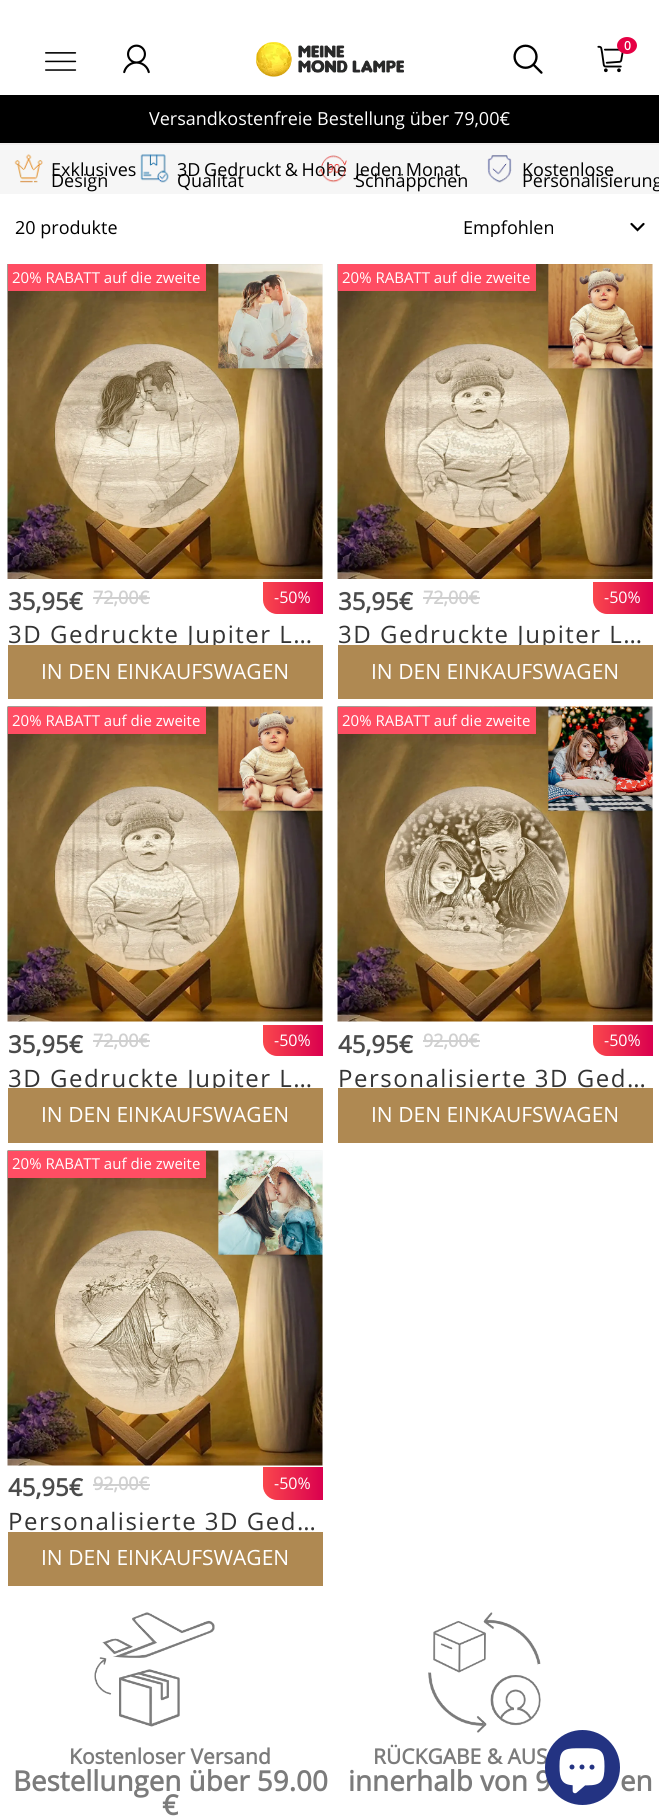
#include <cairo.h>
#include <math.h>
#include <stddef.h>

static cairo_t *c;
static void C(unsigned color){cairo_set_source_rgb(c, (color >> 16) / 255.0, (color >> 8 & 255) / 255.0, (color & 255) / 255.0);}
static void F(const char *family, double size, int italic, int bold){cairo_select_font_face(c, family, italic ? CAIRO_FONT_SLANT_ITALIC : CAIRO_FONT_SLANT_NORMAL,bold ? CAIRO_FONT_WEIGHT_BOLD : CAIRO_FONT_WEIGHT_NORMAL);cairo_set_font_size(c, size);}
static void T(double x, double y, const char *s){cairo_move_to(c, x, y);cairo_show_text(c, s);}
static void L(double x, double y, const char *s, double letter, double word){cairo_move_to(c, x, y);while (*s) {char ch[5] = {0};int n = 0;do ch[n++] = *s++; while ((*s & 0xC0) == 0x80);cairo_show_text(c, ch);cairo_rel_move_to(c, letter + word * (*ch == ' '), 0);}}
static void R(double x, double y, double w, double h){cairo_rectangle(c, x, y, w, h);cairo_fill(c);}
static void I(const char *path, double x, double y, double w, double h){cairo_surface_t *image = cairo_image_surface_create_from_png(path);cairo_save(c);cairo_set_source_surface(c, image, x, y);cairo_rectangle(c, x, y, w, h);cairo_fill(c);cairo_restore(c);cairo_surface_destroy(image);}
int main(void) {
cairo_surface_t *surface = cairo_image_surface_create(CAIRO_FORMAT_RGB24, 659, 1816);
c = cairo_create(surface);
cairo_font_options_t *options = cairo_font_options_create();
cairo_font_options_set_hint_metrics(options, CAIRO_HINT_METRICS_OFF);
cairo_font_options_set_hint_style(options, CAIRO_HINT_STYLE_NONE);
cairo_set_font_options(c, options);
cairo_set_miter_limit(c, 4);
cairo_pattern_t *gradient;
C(0xffffff);
cairo_paint(c);
I("1.png",45,52,32,19);
I("2.png",123,44,27,30);
I("3.png",256,42,148,35);
I("4.png",513,44,30,30);
I("5.png",597,45,27,28);
C(0xe60044);
cairo_new_path(c);
cairo_move_to(c,627,37);
cairo_curve_to(c,632.5,37,637,41,637,45.5);
cairo_curve_to(c,637,50,632.5,54,627,54);
cairo_curve_to(c,621.5,54,617,50,617,45.5);
cairo_curve_to(c,617,41,621.5,37,627,37);
cairo_close_path(c);
cairo_fill(c);
F("Open Sans",12,0,1);
C(0xffffff);
T(624,50,"0");
C(0x000000);
R(0,95,659,48);
F("Open Sans",18,0,0);
C(0xffffff);
T(149,125,"Versandkostenfreie Bestellung über 79,00€");
C(0xf6f6f6);
R(0,145,659,49);
C(0xf0eeee);
R(0,143,659,2);
I("6.png",14,154,29,29);
C(0x000000);
T(51,176,"Exklusives");
T(51,187,"Design");
I("7.png",140,154,29,29);
L(177,176,"3D Gedruckt & Hohe",0,-1);
T(177,187,"Qualität");
I("8.png",318,155,29,28);
L(355,176,"Jeden Monat",0,-1);
T(355,187,"Schnäppchen");
I("9.png",487,155,25,28);
T(522,176,"Kostenlose");
T(522,187,"Personalisierung");
T(15,234,"20 produkte");
cairo_save(c);
cairo_rectangle(c,462,219,155,18);
cairo_clip(c);
T(463,234,"Empfohlen");
cairo_restore(c);
cairo_new_path(c);
cairo_move_to(c,631.5,224);
cairo_line_to(c,637.5,230);
cairo_line_to(c,643.5,224);
cairo_set_line_width(c,2.2);
cairo_set_line_cap(c,CAIRO_LINE_CAP_ROUND);
cairo_stroke(c);
I("10.png",7,264,316,315);
C(0xff4d63);
R(8,264,198,27);
F("Open Sans",15,0,0);
C(0xffffff);
T(12,283,"20% RABATT auf die zweite");
gradient = cairo_pattern_create_linear(323,597,263,597);
cairo_pattern_add_color_stop_rgba(gradient,0,0.855,0,0.306,1);
cairo_pattern_add_color_stop_rgba(gradient,1,0.98,0.278,0.302,1);
cairo_set_source(c,gradient);
cairo_pattern_destroy(gradient);
cairo_new_path(c);
cairo_move_to(c,263,582);
cairo_line_to(c,323,582);
cairo_line_to(c,323,614);
cairo_line_to(c,277,614);
cairo_curve_to(c,269.5,614,263,607.5,263,600);
cairo_close_path(c);
cairo_fill(c);
F("Open Sans",16,0,0);
C(0xffffff);
T(274,603,"-50%");
F("Open Sans",24,0,1);
C(0x4b4b4b);
T(8,610,"35,95€");
F("Open Sans",18,0,1);
C(0xd0d0d0);
T(93,604,"72,00€");
R(93,597,57,2);
F("Open Sans",24,0,0);
C(0x333333);
L(8,643,"3D Gedruckte Jupiter L…",1.5,0);
C(0xaf8952);
R(8,645,315,54);
F("Open Sans",21,0,0);
C(0xffffff);
T(41,679,"IN DEN EINKAUFSWAGEN");
I("11.png",337,264,316,315);
C(0xff4d63);
R(338,264,198,27);
F("Open Sans",15,0,0);
C(0xffffff);
T(342,283,"20% RABATT auf die zweite");
gradient = cairo_pattern_create_linear(653,597,593,597);
cairo_pattern_add_color_stop_rgba(gradient,0,0.855,0,0.306,1);
cairo_pattern_add_color_stop_rgba(gradient,1,0.98,0.278,0.302,1);
cairo_set_source(c,gradient);
cairo_pattern_destroy(gradient);
cairo_new_path(c);
cairo_move_to(c,593,582);
cairo_line_to(c,653,582);
cairo_line_to(c,653,614);
cairo_line_to(c,607,614);
cairo_curve_to(c,599.5,614,593,607.5,593,600);
cairo_close_path(c);
cairo_fill(c);
F("Open Sans",16,0,0);
C(0xffffff);
T(604,603,"-50%");
F("Open Sans",24,0,1);
C(0x4b4b4b);
T(338,610,"35,95€");
F("Open Sans",18,0,1);
C(0xd0d0d0);
T(423,604,"72,00€");
R(423,597,57,2);
F("Open Sans",24,0,0);
C(0x333333);
L(338,643,"3D Gedruckte Jupiter L…",1.5,0);
C(0xaf8952);
R(338,645,315,54);
F("Open Sans",21,0,0);
C(0xffffff);
T(371,679,"IN DEN EINKAUFSWAGEN");
I("12.png",7,706,316,316);
C(0xff4d63);
R(8,707,198,27);
F("Open Sans",15,0,0);
C(0xffffff);
T(12,726,"20% RABATT auf die zweite");
gradient = cairo_pattern_create_linear(323,1040,263,1040);
cairo_pattern_add_color_stop_rgba(gradient,0,0.855,0,0.306,1);
cairo_pattern_add_color_stop_rgba(gradient,1,0.98,0.278,0.302,1);
cairo_set_source(c,gradient);
cairo_pattern_destroy(gradient);
cairo_new_path(c);
cairo_move_to(c,263,1025);
cairo_line_to(c,323,1025);
cairo_line_to(c,323,1056);
cairo_line_to(c,277,1056);
cairo_curve_to(c,269.5,1056,263,1049.5,263,1042);
cairo_close_path(c);
cairo_fill(c);
F("Open Sans",16,0,0);
C(0xffffff);
T(274,1046,"-50%");
F("Open Sans",24,0,1);
C(0x4b4b4b);
T(8,1053,"35,95€");
F("Open Sans",18,0,1);
C(0xd0d0d0);
T(93,1047,"72,00€");
R(93,1040,57,2);
F("Open Sans",24,0,0);
C(0x333333);
L(8,1087,"3D Gedruckte Jupiter L…",1.5,0);
C(0xaf8952);
R(8,1088,315,55);
F("Open Sans",21,0,0);
C(0xffffff);
T(41,1122,"IN DEN EINKAUFSWAGEN");
I("13.png",337,706,316,316);
C(0xff4d63);
R(338,707,198,27);
F("Open Sans",15,0,0);
C(0xffffff);
T(342,726,"20% RABATT auf die zweite");
gradient = cairo_pattern_create_linear(653,1040,593,1040);
cairo_pattern_add_color_stop_rgba(gradient,0,0.855,0,0.306,1);
cairo_pattern_add_color_stop_rgba(gradient,1,0.98,0.278,0.302,1);
cairo_set_source(c,gradient);
cairo_pattern_destroy(gradient);
cairo_new_path(c);
cairo_move_to(c,593,1025);
cairo_line_to(c,653,1025);
cairo_line_to(c,653,1056);
cairo_line_to(c,607,1056);
cairo_curve_to(c,599.5,1056,593,1049.5,593,1042);
cairo_close_path(c);
cairo_fill(c);
F("Open Sans",16,0,0);
C(0xffffff);
T(604,1046,"-50%");
F("Open Sans",24,0,1);
C(0x4b4b4b);
T(338,1053,"45,95€");
F("Open Sans",18,0,1);
C(0xd0d0d0);
T(423,1047,"92,00€");
R(423,1040,57,2);
F("Open Sans",24,0,0);
C(0x333333);
L(338,1087,"Personalisierte 3D Ged…",1.5,0);
C(0xaf8952);
R(338,1088,315,55);
F("Open Sans",21,0,0);
C(0xffffff);
T(371,1122,"IN DEN EINKAUFSWAGEN");
I("14.png",7,1150,316,316);
C(0xff4d63);
R(8,1151,198,27);
F("Open Sans",15,0,0);
C(0xffffff);
T(12,1169,"20% RABATT auf die zweite");
gradient = cairo_pattern_create_linear(323,1483,263,1483);
cairo_pattern_add_color_stop_rgba(gradient,0,0.855,0,0.306,1);
cairo_pattern_add_color_stop_rgba(gradient,1,0.98,0.278,0.302,1);
cairo_set_source(c,gradient);
cairo_pattern_destroy(gradient);
cairo_new_path(c);
cairo_move_to(c,263,1467);
cairo_line_to(c,323,1467);
cairo_line_to(c,323,1500);
cairo_line_to(c,277,1500);
cairo_curve_to(c,269.5,1500,263,1493.5,263,1486);
cairo_close_path(c);
cairo_fill(c);
F("Open Sans",16,0,0);
C(0xffffff);
T(274,1489,"-50%");
F("Open Sans",24,0,1);
C(0x4b4b4b);
T(8,1496,"45,95€");
F("Open Sans",18,0,1);
C(0xd0d0d0);
T(93,1490,"92,00€");
R(93,1484,57,2);
F("Open Sans",24,0,0);
C(0x333333);
L(8,1530,"Personalisierte 3D Ged…",1.5,0);
C(0xaf8952);
R(8,1532,315,54);
F("Open Sans",21,0,0);
C(0xffffff);
T(41,1565,"IN DEN EINKAUFSWAGEN");
F("Open Sans",21,0,1);
C(0x7b7b7b);
T(373,1764,"RÜCKGABE & AUS");
F("Open Sans",27.8,0,1);
T(348,1791,"innerhalb von 9");
C(0x233382);
cairo_new_path(c);
cairo_arc(c,582.5,1767.5,37.5,0,2 * M_PI);
cairo_fill(c);
I("15.png",559,1748,46,46);
I("16.png",94,1612,121,115);
F("Open Sans",21,0,1);
C(0x7b7b7b);
T(69,1764,"Kostenloser Versand");
F("Open Sans",27.8,0,1);
T(13,1791,"Bestellungen über 59.00");
T(162,1815,"€");
I("17.png",428,1612,113,121);
T(620,1791,"en");
cairo_surface_write_to_png(surface, "o.png");
cairo_font_options_destroy(options);
cairo_destroy(c);
cairo_surface_destroy(surface);
return 0;
}
